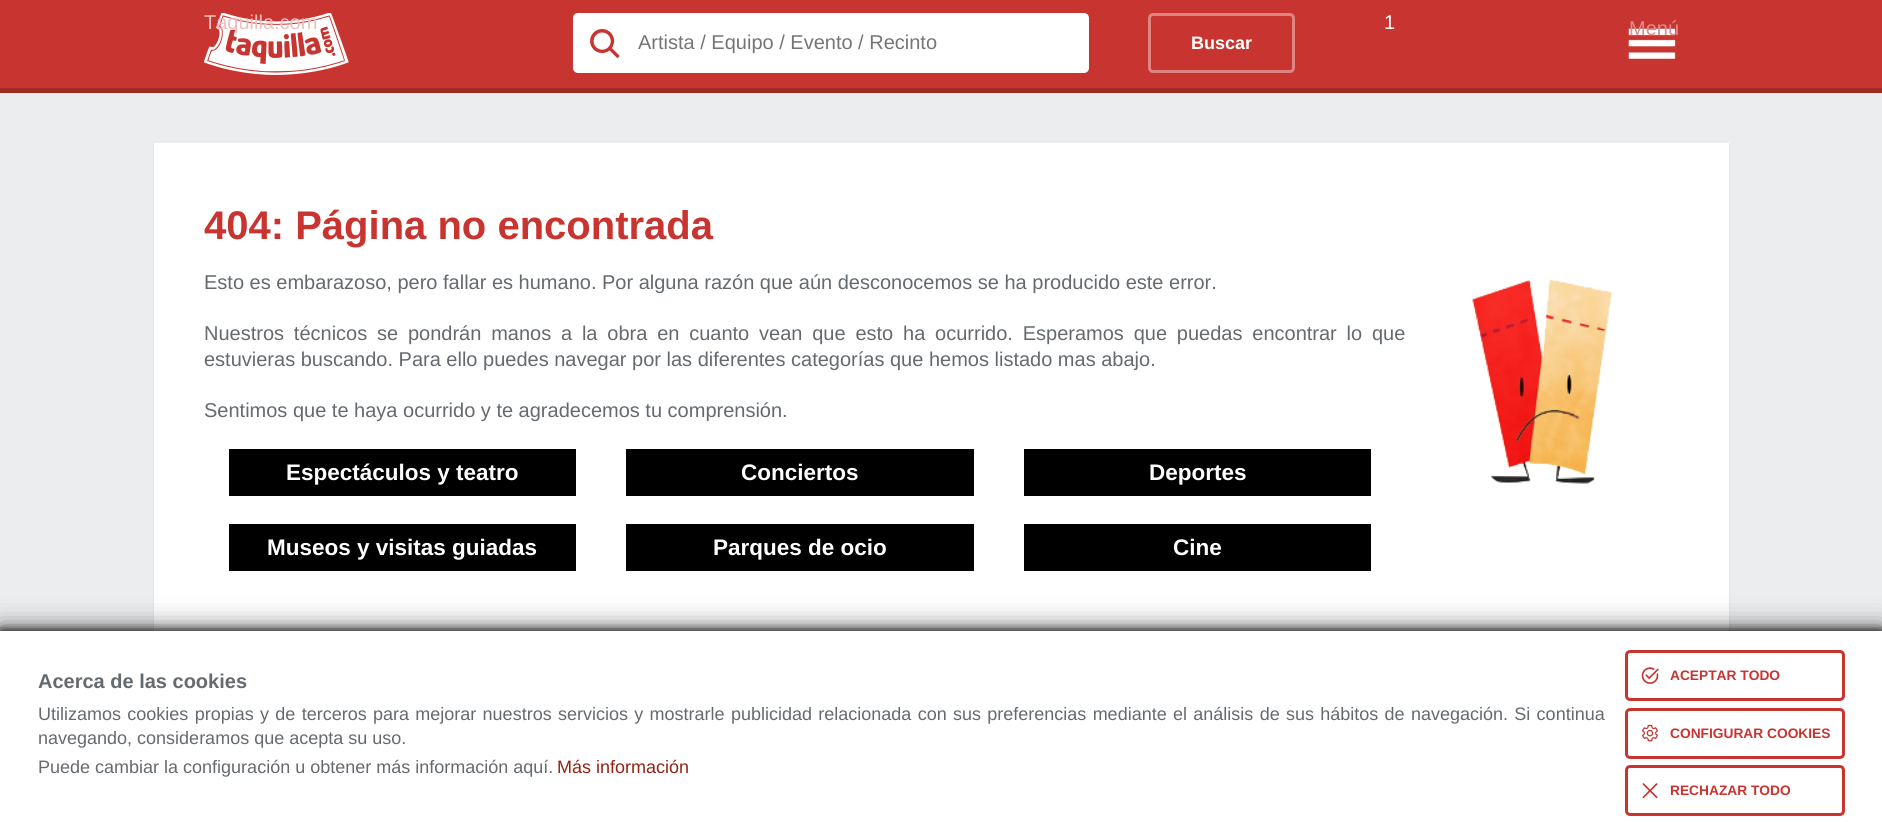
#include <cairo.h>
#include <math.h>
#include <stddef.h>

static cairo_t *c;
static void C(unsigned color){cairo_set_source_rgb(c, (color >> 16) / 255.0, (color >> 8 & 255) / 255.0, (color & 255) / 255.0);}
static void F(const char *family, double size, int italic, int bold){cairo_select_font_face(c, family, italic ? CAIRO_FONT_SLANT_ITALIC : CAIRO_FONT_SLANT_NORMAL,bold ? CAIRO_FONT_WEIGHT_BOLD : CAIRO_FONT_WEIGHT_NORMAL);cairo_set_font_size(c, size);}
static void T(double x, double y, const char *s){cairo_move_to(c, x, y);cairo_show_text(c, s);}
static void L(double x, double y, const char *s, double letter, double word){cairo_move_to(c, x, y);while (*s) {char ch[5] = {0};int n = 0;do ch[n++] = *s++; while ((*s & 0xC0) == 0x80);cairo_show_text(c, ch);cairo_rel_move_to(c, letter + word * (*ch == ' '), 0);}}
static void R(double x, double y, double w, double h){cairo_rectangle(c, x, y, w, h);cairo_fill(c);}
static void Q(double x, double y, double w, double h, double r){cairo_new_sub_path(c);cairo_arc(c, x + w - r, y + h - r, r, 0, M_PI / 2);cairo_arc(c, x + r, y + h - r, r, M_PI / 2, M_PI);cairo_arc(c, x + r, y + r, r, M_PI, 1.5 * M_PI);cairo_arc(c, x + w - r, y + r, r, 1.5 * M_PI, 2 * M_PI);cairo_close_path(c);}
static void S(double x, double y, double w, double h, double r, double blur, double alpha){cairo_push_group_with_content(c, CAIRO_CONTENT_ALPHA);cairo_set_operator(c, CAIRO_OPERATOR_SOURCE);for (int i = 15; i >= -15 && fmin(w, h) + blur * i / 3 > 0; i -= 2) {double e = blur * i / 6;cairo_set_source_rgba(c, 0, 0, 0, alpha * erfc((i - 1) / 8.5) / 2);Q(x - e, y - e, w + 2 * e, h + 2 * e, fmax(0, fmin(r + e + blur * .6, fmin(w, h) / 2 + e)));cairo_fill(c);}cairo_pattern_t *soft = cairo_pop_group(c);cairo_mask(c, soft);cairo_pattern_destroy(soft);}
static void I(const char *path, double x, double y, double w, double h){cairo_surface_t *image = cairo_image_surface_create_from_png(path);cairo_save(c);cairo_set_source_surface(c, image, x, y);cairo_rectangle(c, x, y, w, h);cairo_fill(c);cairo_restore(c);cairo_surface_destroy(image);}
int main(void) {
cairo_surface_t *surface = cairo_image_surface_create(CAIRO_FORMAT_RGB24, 1882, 822);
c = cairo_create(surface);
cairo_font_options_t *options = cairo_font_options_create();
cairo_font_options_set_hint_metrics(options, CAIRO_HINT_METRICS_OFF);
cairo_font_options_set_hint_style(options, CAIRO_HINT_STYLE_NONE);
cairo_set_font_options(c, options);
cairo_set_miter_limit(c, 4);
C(0xebedef);
cairo_paint(c);
C(0xc83430);
R(0,0,1882,88);
C(0xa02a26);
R(0,88,1882,5);
I("1.png",204,13,145,62);
F("Liberation Sans",20,0,0);
C(0xeebfbe);
T(204,29,"Taquilla.com");
C(0xffffff);
T(1384,29,"1");
I("2.png",1628,28,48,31);
C(0xe08d8b);
T(1629,35,"Menú");
C(0xffffff);
Q(573,13,516,60,5);
cairo_fill(c);
I("3.png",590,29,30,30);
C(0x757575);
T(638,49,"Artista / Equipo / Evento / Recinto");
Q(1149.5,14.5,144,57,3.5);
C(0xde8583);
cairo_set_line_width(c,3);
cairo_stroke(c);
F("Liberation Sans",18,0,1);
C(0xffffff);
T(1191,49,"Buscar");
C(0xcccccc);
S(154,144,1575,660,0,.5,1);
C(0xffffff);
R(154,143,1575,488);
F("Liberation Sans",40,0,1);
C(0xc83430);
T(204,239,"404: Página no encontrada");
F("Liberation Sans",20,0,0);
C(0x656a6f);
T(204,289,"Esto es embarazoso, pero fallar es humano. Por alguna razón que aún desconocemos se ha producido este error.");
I("4.png",1472,279,141,205);
L(204,340,"Nuestros técnicos se pondrán manos a la obra en cuanto vean que esto ha ocurrido. Esperamos que puedas encontrar lo que",0,4.25);
T(204,366,"estuvieras buscando. Para ello puedes navegar por las diferentes categorías que hemos listado mas abajo.");
T(204,417,"Sentimos que te haya ocurrido y te agradecemos tu comprensión.");
C(0x000000);
R(229,449,347,47);
F("Liberation Sans",22.5,0,1);
C(0xffffff);
T(286,480,"Espectáculos y teatro");
C(0x000000);
R(626,449,348,47);
C(0xffffff);
T(741,480,"Conciertos");
C(0x000000);
R(1024,449,347,47);
C(0xffffff);
T(1149,480,"Deportes");
C(0x000000);
R(229,524,347,47);
C(0xffffff);
T(267,555,"Museos y visitas guiadas");
C(0x000000);
R(626,524,348,47);
C(0xffffff);
T(713,555,"Parques de ocio");
C(0x000000);
R(1024,524,347,47);
C(0xffffff);
T(1173,555,"Cine");
C(0x000000);
S(0,629,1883,191,0,4,.73);
S(0,626,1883,192,0,12.5,.49);
C(0xffffff);
R(0,631,1882,191);
F("Liberation Sans",20,0,1);
C(0x656a6f);
T(38,688,"Acerca de las cookies");
F("Liberation Sans",18,0,0);
L(38,720,"Utilizamos cookies propias y de terceros para mejorar nuestros servicios y mostrarle publicidad relacionada con sus preferencias mediante el análisis de sus hábitos de navegación. Si continua",0,1.3);
T(38,744,"navegando, consideramos que acepta su uso.");
T(38,773,"Puede cambiar la configuración u obtener más información aquí.");
C(0x932314);
T(557,773,"Más información");
Q(1626.5,651.5,217,48,3.5);
C(0xc83430);
cairo_stroke(c);
I("5.png",1641,667,18,17);
F("Liberation Sans",13.75,0,1);
T(1670,680,"ACEPTAR TODO");
Q(1626.5,709.5,217,48,3.5);
cairo_stroke(c);
I("6.png",1642,724,16,18);
T(1670,738,"CONFIGURAR COOKIES");
Q(1626.5,766.5,217,48,3.5);
cairo_stroke(c);
I("7.png",1642,783,16,16);
T(1670,795,"RECHAZAR TODO");
cairo_surface_write_to_png(surface, "o.png");
cairo_font_options_destroy(options);
cairo_destroy(c);
cairo_surface_destroy(surface);
return 0;
}
